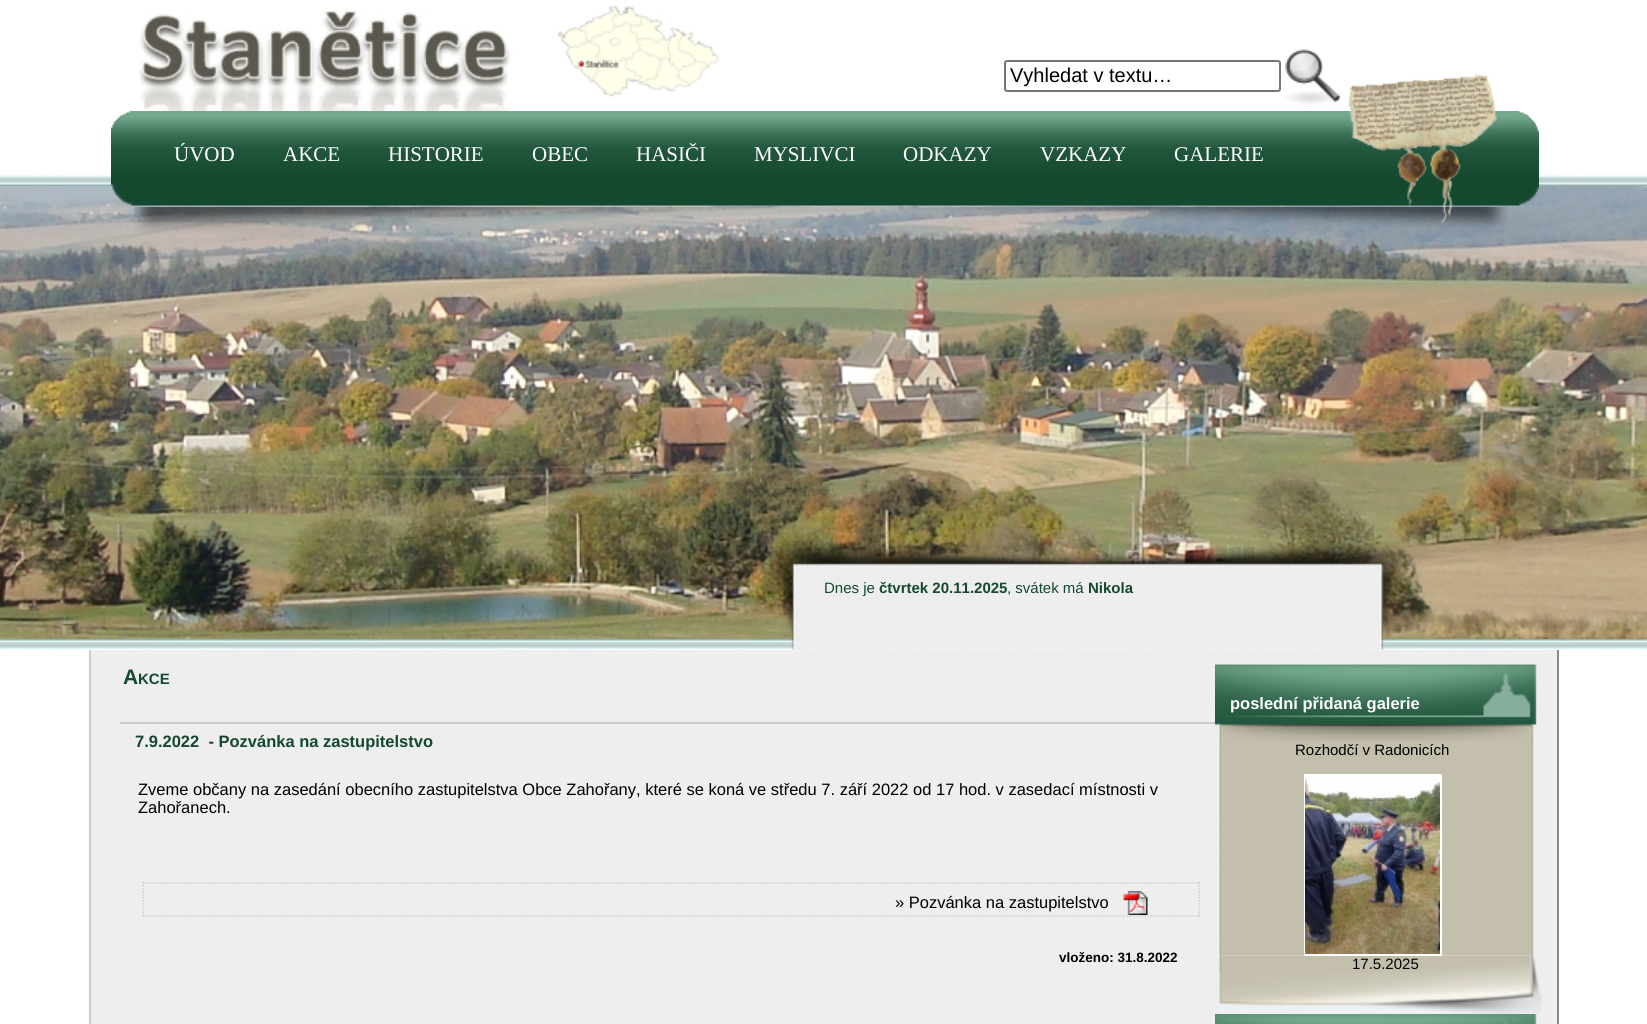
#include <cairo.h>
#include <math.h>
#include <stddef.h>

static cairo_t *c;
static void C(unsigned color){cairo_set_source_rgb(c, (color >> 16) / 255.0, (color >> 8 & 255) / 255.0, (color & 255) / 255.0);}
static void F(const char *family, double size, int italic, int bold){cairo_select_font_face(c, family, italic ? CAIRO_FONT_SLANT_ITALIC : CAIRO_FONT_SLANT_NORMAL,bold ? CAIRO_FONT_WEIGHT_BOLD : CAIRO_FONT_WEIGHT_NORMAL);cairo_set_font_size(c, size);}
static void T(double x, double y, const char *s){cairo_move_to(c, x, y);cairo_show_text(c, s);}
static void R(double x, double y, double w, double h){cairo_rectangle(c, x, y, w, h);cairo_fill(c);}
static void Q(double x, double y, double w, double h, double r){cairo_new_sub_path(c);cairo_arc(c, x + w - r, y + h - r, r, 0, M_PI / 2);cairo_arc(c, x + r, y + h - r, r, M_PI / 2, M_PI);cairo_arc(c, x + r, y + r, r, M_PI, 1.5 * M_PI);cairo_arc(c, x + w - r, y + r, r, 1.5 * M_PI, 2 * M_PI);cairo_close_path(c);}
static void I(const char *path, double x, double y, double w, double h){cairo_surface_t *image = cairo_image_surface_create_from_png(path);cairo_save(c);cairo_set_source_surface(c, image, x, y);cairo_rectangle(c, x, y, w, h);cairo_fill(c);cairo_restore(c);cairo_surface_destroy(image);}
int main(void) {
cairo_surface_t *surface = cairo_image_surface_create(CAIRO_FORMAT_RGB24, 1647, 1024);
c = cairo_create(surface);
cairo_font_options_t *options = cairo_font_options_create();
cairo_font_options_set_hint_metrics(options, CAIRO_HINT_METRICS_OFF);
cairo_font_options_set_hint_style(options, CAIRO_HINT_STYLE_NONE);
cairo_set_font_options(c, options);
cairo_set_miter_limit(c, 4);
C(0xffffff);
cairo_paint(c);
I("1.png",138,5,581,106);
Q(1005,61,275,30,2);
C(0x767676);
cairo_stroke(c);
F("Liberation Sans",20,0,0);
C(0x000000);
T(1010,82,"Vyhledat v textu…");
I("2.png",1285,49,56,56);
I("7.png",0,175,1647,11);
I("8.png",0,186,1647,453);
I("4.png",111,133,1428,73);
I("5.png",111,111,1428,22);
I("6.png",133,207,1375,27);
I("3.png",1348,74,149,149);
F("Liberation Serif",21,0,0);
C(0xffffff);
T(174,161,"ÚVOD");
T(283,161,"AKCE");
T(388,161,"HISTORIE");
T(532,161,"OBEC");
T(636,161,"HASIČI");
T(754,161,"MYSLIVCI");
T(903,161,"ODKAZY");
T(1040,161,"VZKAZY");
T(1174,161,"GALERIE");
I("9.png",0,639,1647,11);
I("10.png",767,540,642,110);
F("Liberation Sans",15,0,0);
C(0x14482f);
T(824,593,"Dnes je");
F("Liberation Sans",15,0,1);
T(879,593,"čtvrtek 20.11.2025");
F("Liberation Sans",15,0,0);
T(1007,593,", svátek má");
F("Liberation Sans",15,0,1);
T(1088,593,"Nikola");
C(0xeeeeee);
R(91,650,1466,374);
C(0x888888);
R(1557,650,2,374);
C(0xcccccc);
R(89,650,2,374);
F("Liberation Sans",21,0,1);
C(0x14482f);
T(123,684,"A");
F("Liberation Sans",15,0,1);
T(138,684,"KCE");
C(0xcccccc);
R(120,722,1095,2);
F("Liberation Sans",16.5,0,1);
C(0x14482f);
T(135,747,"7.9.2022  - Pozvánka na zastupitelstvo");
F("Liberation Sans",16.5,0,0);
C(0x000000);
T(138,795,"Zveme občany na zasedání obecního zastupitelstva Obce Zahořany, které se koná ve středu 7. září 2022 od 17 hod. v zasedací místnosti v");
T(138,813,"Zahořanech.");
I("11.png",1123,891,25,24);
cairo_new_path(c);
cairo_move_to(c,142.5,883);
cairo_line_to(c,1200,883);
C(0xcccccc);
cairo_set_line_width(c,1.5);
cairo_set_dash(c,(double[]){1.5,1.5},2,0);
cairo_stroke(c);
cairo_new_path(c);
cairo_move_to(c,1199,882);
cairo_line_to(c,1199,916.5);
cairo_stroke(c);
cairo_new_path(c);
cairo_move_to(c,142.5,916);
cairo_line_to(c,1200,916);
cairo_stroke(c);
cairo_new_path(c);
cairo_move_to(c,143,882);
cairo_line_to(c,143,916.5);
cairo_stroke(c);
C(0x000000);
T(895,908,"» Pozvánka na zastupitelstvo");
F("Liberation Sans",13.5,0,1);
T(1059,962,"vloženo: 31.8.2022");
I("12.png",1215,664,322,77);
F("Liberation Sans",16.5,0,1);
C(0xffffff);
T(1230,709,"poslední přidaná galerie");
I("13.png",1219,741,315,215);
F("Liberation Sans",15,0,0);
C(0x000000);
T(1295,755,"Rozhodčí v Radonicích");
I("15.png",1219,955,323,59);
cairo_rectangle(c,1305,775,136,180);
C(0xffffff);
cairo_set_line_width(c,2);
cairo_set_dash(c,NULL,0,0);
cairo_stroke(c);
I("14.png",1305,776,135,178);
C(0x000000);
T(1352,969,"17.5.2025");
I("16.png",1215,1014,322,10);
cairo_surface_write_to_png(surface, "o.png");
cairo_font_options_destroy(options);
cairo_destroy(c);
cairo_surface_destroy(surface);
return 0;
}
